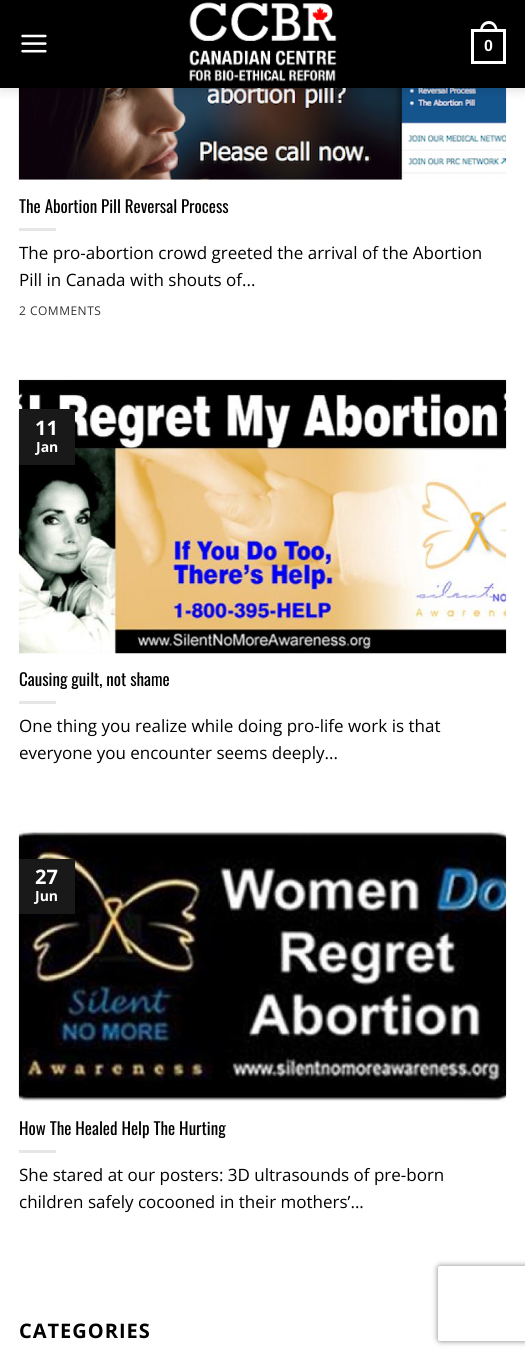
#include <cairo.h>
#include <math.h>
#include <stddef.h>

static cairo_t *c;
static void C(unsigned color){cairo_set_source_rgb(c, (color >> 16) / 255.0, (color >> 8 & 255) / 255.0, (color & 255) / 255.0);}
static void F(const char *family, double size, int italic, int bold){cairo_select_font_face(c, family, italic ? CAIRO_FONT_SLANT_ITALIC : CAIRO_FONT_SLANT_NORMAL,bold ? CAIRO_FONT_WEIGHT_BOLD : CAIRO_FONT_WEIGHT_NORMAL);cairo_set_font_size(c, size);}
static void T(double x, double y, const char *s){cairo_move_to(c, x, y);cairo_show_text(c, s);}
static void L(double x, double y, const char *s, double letter, double word){cairo_move_to(c, x, y);while (*s) {char ch[5] = {0};int n = 0;do ch[n++] = *s++; while ((*s & 0xC0) == 0x80);cairo_show_text(c, ch);cairo_rel_move_to(c, letter + word * (*ch == ' '), 0);}}
static void R(double x, double y, double w, double h){cairo_rectangle(c, x, y, w, h);cairo_fill(c);}
static void Q(double x, double y, double w, double h, double r){cairo_new_sub_path(c);cairo_arc(c, x + w - r, y + h - r, r, 0, M_PI / 2);cairo_arc(c, x + r, y + h - r, r, M_PI / 2, M_PI);cairo_arc(c, x + r, y + r, r, M_PI, 1.5 * M_PI);cairo_arc(c, x + w - r, y + r, r, 1.5 * M_PI, 2 * M_PI);cairo_close_path(c);}
static void S(double x, double y, double w, double h, double r, double blur, double alpha){cairo_push_group_with_content(c, CAIRO_CONTENT_ALPHA);cairo_set_operator(c, CAIRO_OPERATOR_SOURCE);for (int i = 15; i >= -15 && fmin(w, h) + blur * i / 3 > 0; i -= 2) {double e = blur * i / 6;cairo_set_source_rgba(c, 0, 0, 0, alpha * erfc((i - 1) / 8.5) / 2);Q(x - e, y - e, w + 2 * e, h + 2 * e, fmax(0, fmin(r + e + blur * .6, fmin(w, h) / 2 + e)));cairo_fill(c);}cairo_pattern_t *soft = cairo_pop_group(c);cairo_mask(c, soft);cairo_pattern_destroy(soft);}
static void I(const char *path, double x, double y, double w, double h){cairo_surface_t *image = cairo_image_surface_create_from_png(path);cairo_save(c);cairo_set_source_surface(c, image, x, y);cairo_rectangle(c, x, y, w, h);cairo_fill(c);cairo_restore(c);cairo_surface_destroy(image);}
int main(void) {
cairo_surface_t *surface = cairo_image_surface_create(CAIRO_FORMAT_RGB24, 525, 1358);
c = cairo_create(surface);
cairo_font_options_t *options = cairo_font_options_create();
cairo_font_options_set_hint_metrics(options, CAIRO_HINT_METRICS_OFF);
cairo_font_options_set_hint_style(options, CAIRO_HINT_STYLE_NONE);
cairo_set_font_options(c, options);
cairo_set_miter_limit(c, 4);
C(0xffffff);
cairo_paint(c);
I("3.png",18,88,489,92);
C(0x000000);
S(1,1,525,88,0,6,.15);
C(0x000000);
R(0,0,525,88);
I("1.png",21,34,26,19);
I("2.png",189,2,148,80);
cairo_rectangle(c,472.5,30.5,32,32);
C(0xffffff);
cairo_set_line_width(c,3);
cairo_stroke(c);
cairo_set_fill_rule(c,CAIRO_FILL_RULE_EVEN_ODD);
cairo_new_path(c);
cairo_move_to(c,489,21);
cairo_curve_to(c,494.5,21,497.5,26,497.5,31);
cairo_line_to(c,480,31);
cairo_curve_to(c,480,26,483,21,489,21);
cairo_close_path(c);
cairo_move_to(c,489,24);
cairo_curve_to(c,493,24,495,27.5,495,31);
cairo_line_to(c,482.5,31);
cairo_curve_to(c,482.5,27.5,484.5,24,489,24);
cairo_close_path(c);
cairo_fill(c);
F("Liberation Sans",16,0,1);
T(484,51,"0");
F("Oswald",17,0,0);
C(0x000000);
T(19,213,"The Abortion Pill Reversal Process");
C(0xe6e6e6);
R(19,228,37,3);
F("Open Sans",17,0,0);
C(0x000000);
T(19,259,"The pro-abortion crowd greeted the arrival of the Abortion");
T(19,286,"Pill in Canada with shouts of...");
F("Open Sans",12,0,0);
C(0x333333);
L(19,315,"2 COMMENTS",.5,0);
I("4.png",18,379,489,275);
C(0x191919);
R(19,409,56,56);
F("Open Sans",20,0,1);
C(0xffffff);
T(35,435,"11");
F("Open Sans",14,0,1);
T(36,452,"Jan");
F("Oswald",17,0,0);
C(0x000000);
T(19,686,"Causing guilt, not shame");
C(0xe6e6e6);
R(19,701,37,3);
F("Open Sans",17,0,0);
C(0x000000);
T(19,732,"One thing you realize while doing pro-life work is that");
T(19,759,"everyone you encounter seems deeply...");
I("5.png",18,830,489,272);
C(0x191919);
R(19,859,56,55);
F("Open Sans",20,0,1);
C(0xffffff);
T(35,884,"27");
F("Open Sans",14,0,1);
T(35,901,"Jun");
F("Oswald",17,0,0);
C(0x000000);
T(19,1135,"How The Healed Help The Hurting");
C(0xe6e6e6);
R(19,1150,37,3);
F("Open Sans",17,0,0);
C(0x000000);
T(19,1181,"She stared at our posters: 3D ultrasounds of pre-born");
T(19,1208,"children safely cocooned in their mothers’...");
F("Open Sans",20,0,1);
L(19,1338,"CATEGORIES",1,0);
cairo_save(c);
cairo_new_path(c);
cairo_move_to(c,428,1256);
cairo_line_to(c,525,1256);
cairo_line_to(c,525,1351);
cairo_line_to(c,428,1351);
cairo_close_path(c);
cairo_move_to(c,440.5,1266);
cairo_line_to(c,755.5,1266);
cairo_curve_to(c,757,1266,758,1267,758,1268.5);
cairo_line_to(c,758,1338.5);
cairo_curve_to(c,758,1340,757,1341,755.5,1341);
cairo_line_to(c,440.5,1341);
cairo_curve_to(c,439,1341,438,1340,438,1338.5);
cairo_line_to(c,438,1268.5);
cairo_curve_to(c,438,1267,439,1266,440.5,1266);
cairo_close_path(c);
cairo_clip(c);
C(0x808080);
S(438,1266,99,75,2.5,3,1);
cairo_restore(c);
cairo_surface_write_to_png(surface, "o.png");
cairo_font_options_destroy(options);
cairo_destroy(c);
cairo_surface_destroy(surface);
return 0;
}
